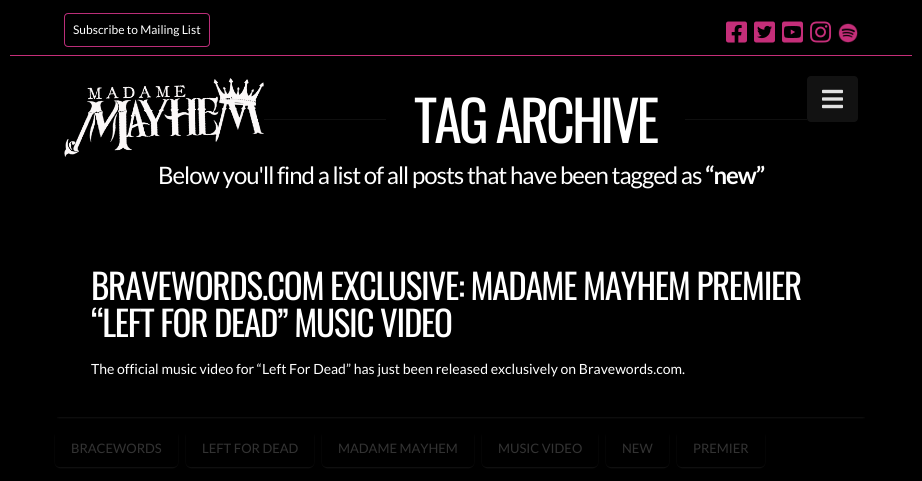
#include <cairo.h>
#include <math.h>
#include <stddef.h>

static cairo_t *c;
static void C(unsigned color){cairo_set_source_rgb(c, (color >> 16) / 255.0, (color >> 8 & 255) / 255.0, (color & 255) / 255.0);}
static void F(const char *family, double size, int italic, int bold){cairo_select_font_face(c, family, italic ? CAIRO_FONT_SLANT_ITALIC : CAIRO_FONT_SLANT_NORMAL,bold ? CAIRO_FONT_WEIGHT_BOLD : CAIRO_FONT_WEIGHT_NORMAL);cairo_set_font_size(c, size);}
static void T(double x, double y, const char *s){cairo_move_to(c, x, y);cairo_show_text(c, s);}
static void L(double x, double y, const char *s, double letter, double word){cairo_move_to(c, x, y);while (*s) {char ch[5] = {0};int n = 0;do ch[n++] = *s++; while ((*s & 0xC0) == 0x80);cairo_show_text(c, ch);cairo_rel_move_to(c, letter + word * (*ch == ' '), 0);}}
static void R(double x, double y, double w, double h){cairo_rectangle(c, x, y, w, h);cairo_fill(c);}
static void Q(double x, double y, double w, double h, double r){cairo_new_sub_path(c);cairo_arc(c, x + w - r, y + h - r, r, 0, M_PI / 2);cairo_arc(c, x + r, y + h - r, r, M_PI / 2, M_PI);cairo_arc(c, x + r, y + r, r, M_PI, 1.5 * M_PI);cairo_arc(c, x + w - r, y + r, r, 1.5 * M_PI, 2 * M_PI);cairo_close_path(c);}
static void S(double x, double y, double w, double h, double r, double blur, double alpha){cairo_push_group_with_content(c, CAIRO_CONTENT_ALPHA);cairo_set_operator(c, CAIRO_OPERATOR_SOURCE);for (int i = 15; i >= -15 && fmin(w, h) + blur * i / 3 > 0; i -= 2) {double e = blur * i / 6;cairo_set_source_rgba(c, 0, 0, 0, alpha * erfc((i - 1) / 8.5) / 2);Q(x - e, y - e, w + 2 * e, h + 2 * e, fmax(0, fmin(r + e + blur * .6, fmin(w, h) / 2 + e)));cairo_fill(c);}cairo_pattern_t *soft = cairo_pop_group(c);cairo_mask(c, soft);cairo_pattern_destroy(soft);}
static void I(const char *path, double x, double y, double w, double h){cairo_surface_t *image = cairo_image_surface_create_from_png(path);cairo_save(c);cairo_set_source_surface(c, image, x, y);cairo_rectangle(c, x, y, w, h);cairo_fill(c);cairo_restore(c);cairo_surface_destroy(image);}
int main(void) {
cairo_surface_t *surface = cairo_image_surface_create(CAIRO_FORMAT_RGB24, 922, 481);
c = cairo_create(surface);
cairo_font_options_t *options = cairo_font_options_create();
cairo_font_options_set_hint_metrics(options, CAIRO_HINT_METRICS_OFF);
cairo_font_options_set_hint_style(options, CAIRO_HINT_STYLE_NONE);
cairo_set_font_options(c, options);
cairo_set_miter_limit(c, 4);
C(0x000000);
cairo_paint(c);
C(0xc52e79);
R(10,55,902,1);
Q(64.5,13.5,145,33,3.5);
C(0xbb2e79);
cairo_set_line_width(c,1);
cairo_stroke(c);
F("Lato",12,0,0);
C(0xffffff);
T(73,34,"Subscribe to Mailing List");
I("1.png",726,21,21,22);
I("2.png",754,21,21,22);
I("3.png",782,21,21,22);
I("4.png",810,21,22,22);
I("5.png",838,23,20,20);
I("6.png",64,78,200,79);
C(0x121212);
Q(807,76,51,46,4);
cairo_fill(c);
I("7.png",822,89,21,20);
C(0x0f0f0f);
R(264,119,122,1);
F("Oswald",56,0,0);
C(0xffffff);
L(414,143,"TAG ARCHIVE",-3,0);
C(0x0f0f0f);
R(685,119,122,1);
F("Lato",24,0,0);
C(0xffffff);
L(158,184,"Below you'll find a list of all posts that have been tagged as",-1,0);
F("Lato",24,0,1);
L(705,184,"“new”",-1,0);
cairo_save(c);
cairo_rectangle(c,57,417,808,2);
cairo_clip(c);
C(0xffffff);
S(57,235,808,183,2,1,.07);
cairo_restore(c);
F("Oswald",35,0,0);
L(91,300,"BRAVEWORDS.COM EXCLUSIVE: MADAME MAYHEM PREMIER",-1.25,0);
L(91,337,"“LEFT FOR DEAD” MUSIC VIDEO",-1.25,0);
F("Lato",14,0,0);
T(91,374,"The official music video for “Left For Dead” has just been released exclusively on Bravewords.com.");
cairo_save(c);
cairo_set_fill_rule(c,CAIRO_FILL_RULE_EVEN_ODD);
cairo_new_path(c);
cairo_move_to(c,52,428);
cairo_line_to(c,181,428);
cairo_line_to(c,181,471);
cairo_line_to(c,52,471);
cairo_close_path(c);
cairo_move_to(c,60,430);
cairo_line_to(c,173,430);
cairo_curve_to(c,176,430,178,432,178,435);
cairo_line_to(c,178,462);
cairo_curve_to(c,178,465,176,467,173,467);
cairo_line_to(c,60,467);
cairo_curve_to(c,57,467,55,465,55,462);
cairo_line_to(c,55,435);
cairo_curve_to(c,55,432,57,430,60,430);
cairo_close_path(c);
cairo_clip(c);
C(0xffffff);
S(55,431,123,37,5,.5,.07);
cairo_restore(c);
F("Lato",13,0,0);
C(0x333333);
T(71,453,"BRACEWORDS");
cairo_save(c);
cairo_set_fill_rule(c,CAIRO_FILL_RULE_EVEN_ODD);
cairo_new_path(c);
cairo_move_to(c,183,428);
cairo_line_to(c,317,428);
cairo_line_to(c,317,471);
cairo_line_to(c,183,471);
cairo_close_path(c);
cairo_move_to(c,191,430);
cairo_line_to(c,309,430);
cairo_curve_to(c,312,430,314,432,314,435);
cairo_line_to(c,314,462);
cairo_curve_to(c,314,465,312,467,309,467);
cairo_line_to(c,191,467);
cairo_curve_to(c,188,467,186,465,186,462);
cairo_line_to(c,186,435);
cairo_curve_to(c,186,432,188,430,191,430);
cairo_close_path(c);
cairo_clip(c);
C(0xffffff);
S(186,431,128,37,5,.5,.07);
cairo_restore(c);
T(202,453,"LEFT FOR DEAD");
cairo_save(c);
cairo_set_fill_rule(c,CAIRO_FILL_RULE_EVEN_ODD);
cairo_new_path(c);
cairo_move_to(c,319,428);
cairo_line_to(c,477,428);
cairo_line_to(c,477,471);
cairo_line_to(c,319,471);
cairo_close_path(c);
cairo_move_to(c,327,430);
cairo_line_to(c,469,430);
cairo_curve_to(c,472,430,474,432,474,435);
cairo_line_to(c,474,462);
cairo_curve_to(c,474,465,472,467,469,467);
cairo_line_to(c,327,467);
cairo_curve_to(c,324,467,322,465,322,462);
cairo_line_to(c,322,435);
cairo_curve_to(c,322,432,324,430,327,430);
cairo_close_path(c);
cairo_clip(c);
C(0xffffff);
S(322,431,152,37,5,.5,.07);
cairo_restore(c);
T(338,453,"MADAME MAYHEM");
cairo_save(c);
cairo_set_fill_rule(c,CAIRO_FILL_RULE_EVEN_ODD);
cairo_new_path(c);
cairo_move_to(c,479,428);
cairo_line_to(c,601,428);
cairo_line_to(c,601,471);
cairo_line_to(c,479,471);
cairo_close_path(c);
cairo_move_to(c,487,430);
cairo_line_to(c,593,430);
cairo_curve_to(c,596,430,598,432,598,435);
cairo_line_to(c,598,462);
cairo_curve_to(c,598,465,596,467,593,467);
cairo_line_to(c,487,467);
cairo_curve_to(c,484,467,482,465,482,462);
cairo_line_to(c,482,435);
cairo_curve_to(c,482,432,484,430,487,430);
cairo_close_path(c);
cairo_clip(c);
C(0xffffff);
S(482,431,116,37,5,.5,.07);
cairo_restore(c);
T(498,453,"MUSIC VIDEO");
cairo_save(c);
cairo_set_fill_rule(c,CAIRO_FILL_RULE_EVEN_ODD);
cairo_new_path(c);
cairo_move_to(c,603,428);
cairo_line_to(c,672,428);
cairo_line_to(c,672,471);
cairo_line_to(c,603,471);
cairo_close_path(c);
cairo_move_to(c,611,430);
cairo_line_to(c,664,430);
cairo_curve_to(c,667,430,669,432,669,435);
cairo_line_to(c,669,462);
cairo_curve_to(c,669,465,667,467,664,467);
cairo_line_to(c,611,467);
cairo_curve_to(c,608,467,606,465,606,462);
cairo_line_to(c,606,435);
cairo_curve_to(c,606,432,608,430,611,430);
cairo_close_path(c);
cairo_clip(c);
C(0xffffff);
S(606,431,63,37,5,.5,.07);
cairo_restore(c);
T(622,453,"NEW");
cairo_save(c);
cairo_set_fill_rule(c,CAIRO_FILL_RULE_EVEN_ODD);
cairo_new_path(c);
cairo_move_to(c,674,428);
cairo_line_to(c,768,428);
cairo_line_to(c,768,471);
cairo_line_to(c,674,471);
cairo_close_path(c);
cairo_move_to(c,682,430);
cairo_line_to(c,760,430);
cairo_curve_to(c,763,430,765,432,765,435);
cairo_line_to(c,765,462);
cairo_curve_to(c,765,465,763,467,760,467);
cairo_line_to(c,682,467);
cairo_curve_to(c,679,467,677,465,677,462);
cairo_line_to(c,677,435);
cairo_curve_to(c,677,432,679,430,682,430);
cairo_close_path(c);
cairo_clip(c);
C(0xffffff);
S(677,431,88,37,5,.5,.07);
cairo_restore(c);
T(693,453,"PREMIER");
cairo_surface_write_to_png(surface, "o.png");
cairo_font_options_destroy(options);
cairo_destroy(c);
cairo_surface_destroy(surface);
return 0;
}
